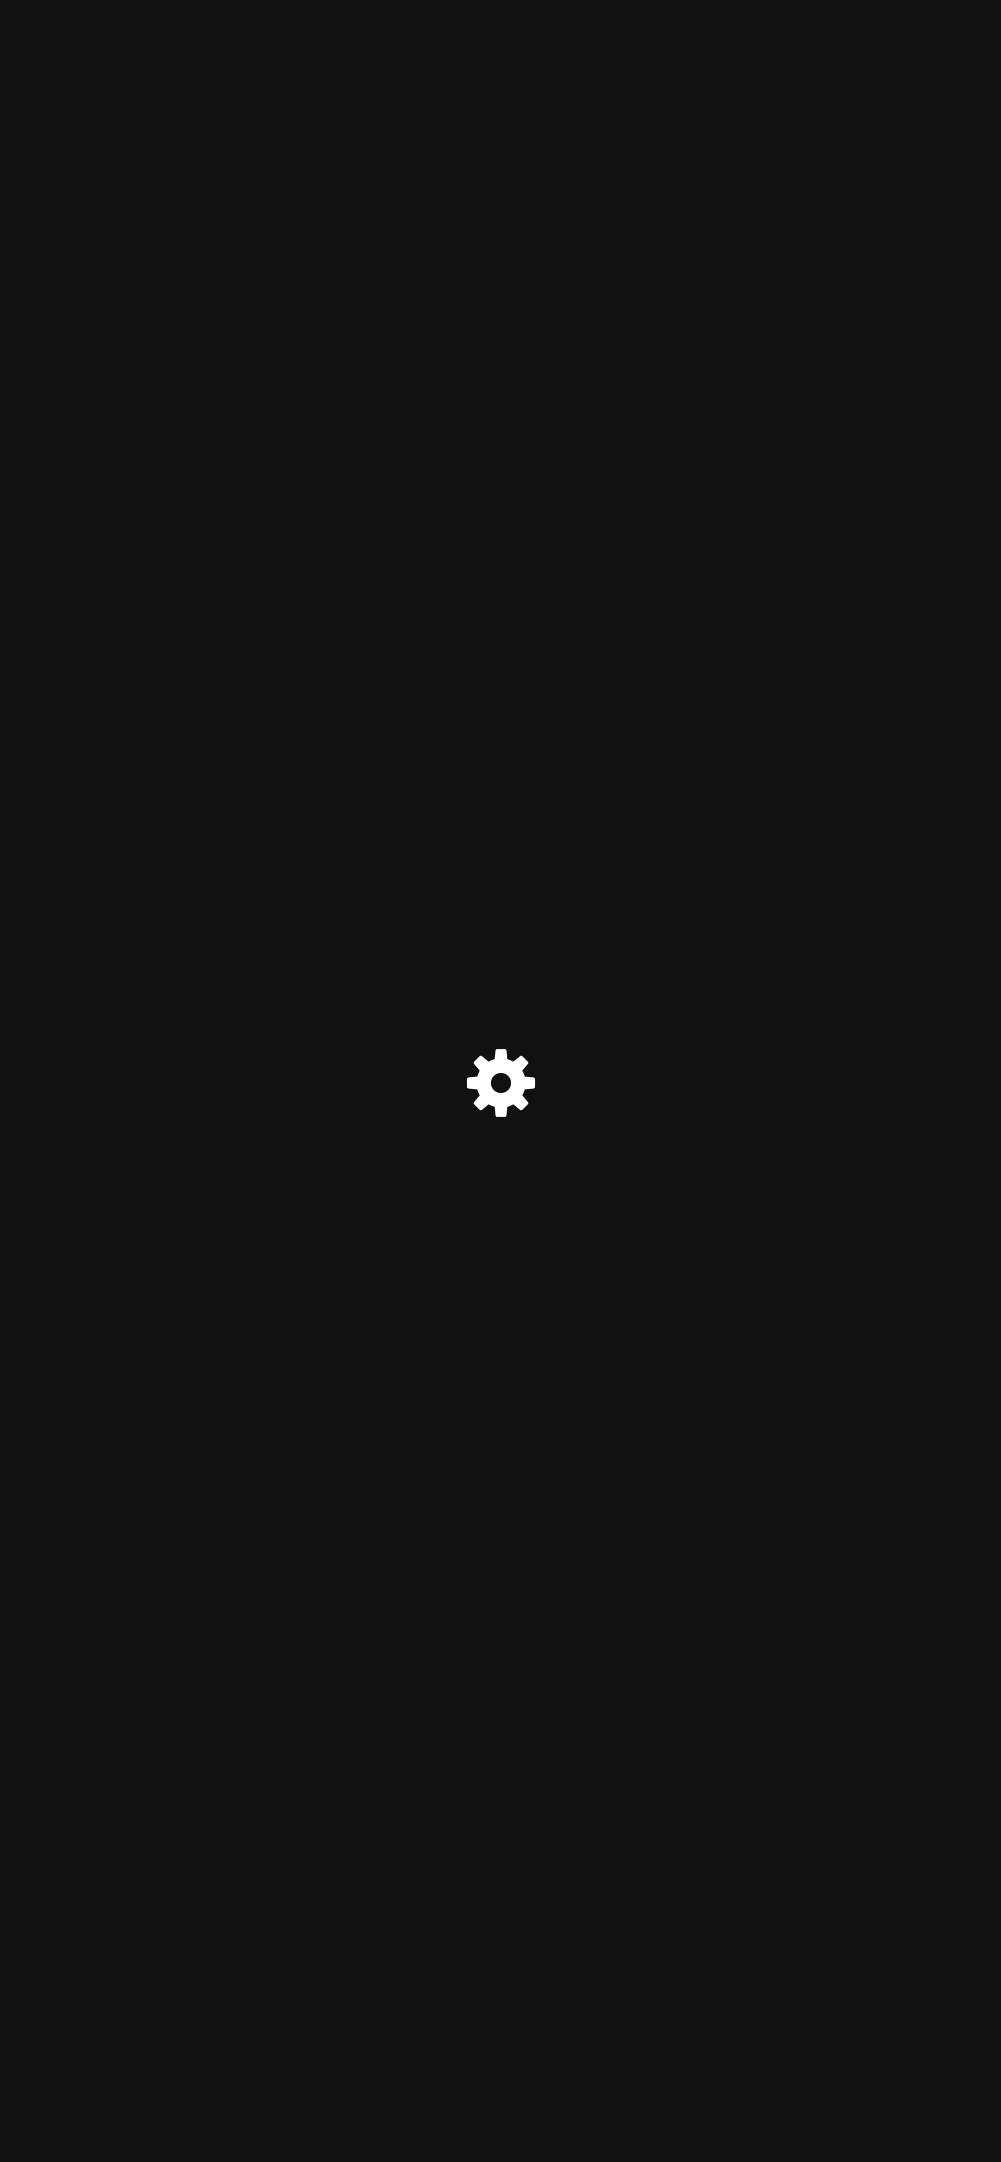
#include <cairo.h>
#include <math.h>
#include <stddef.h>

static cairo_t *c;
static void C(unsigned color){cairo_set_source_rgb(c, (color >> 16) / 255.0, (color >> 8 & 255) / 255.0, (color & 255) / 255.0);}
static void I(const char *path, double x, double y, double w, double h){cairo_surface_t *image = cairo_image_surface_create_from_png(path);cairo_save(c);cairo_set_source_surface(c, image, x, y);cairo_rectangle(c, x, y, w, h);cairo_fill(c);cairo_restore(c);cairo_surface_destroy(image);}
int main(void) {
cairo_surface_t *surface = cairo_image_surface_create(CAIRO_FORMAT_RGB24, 1001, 2162);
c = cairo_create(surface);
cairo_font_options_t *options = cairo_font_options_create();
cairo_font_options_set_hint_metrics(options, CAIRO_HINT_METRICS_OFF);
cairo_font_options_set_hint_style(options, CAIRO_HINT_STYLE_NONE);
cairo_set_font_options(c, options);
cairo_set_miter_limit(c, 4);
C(0x111111);
cairo_paint(c);
I("1.png",466,1049,70,68);
cairo_surface_write_to_png(surface, "o.png");
cairo_font_options_destroy(options);
cairo_destroy(c);
cairo_surface_destroy(surface);
return 0;
}
